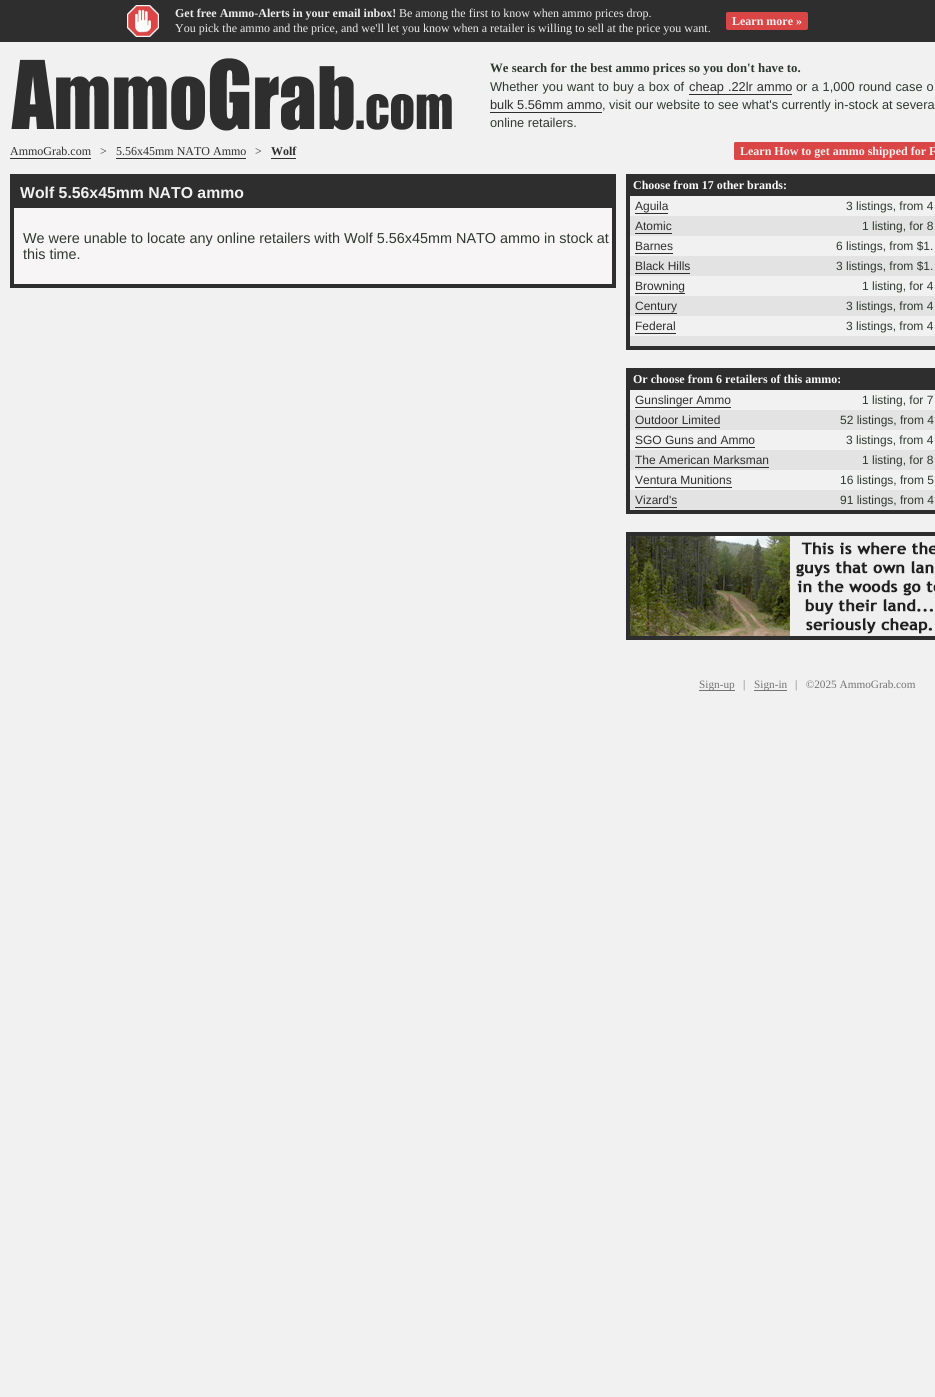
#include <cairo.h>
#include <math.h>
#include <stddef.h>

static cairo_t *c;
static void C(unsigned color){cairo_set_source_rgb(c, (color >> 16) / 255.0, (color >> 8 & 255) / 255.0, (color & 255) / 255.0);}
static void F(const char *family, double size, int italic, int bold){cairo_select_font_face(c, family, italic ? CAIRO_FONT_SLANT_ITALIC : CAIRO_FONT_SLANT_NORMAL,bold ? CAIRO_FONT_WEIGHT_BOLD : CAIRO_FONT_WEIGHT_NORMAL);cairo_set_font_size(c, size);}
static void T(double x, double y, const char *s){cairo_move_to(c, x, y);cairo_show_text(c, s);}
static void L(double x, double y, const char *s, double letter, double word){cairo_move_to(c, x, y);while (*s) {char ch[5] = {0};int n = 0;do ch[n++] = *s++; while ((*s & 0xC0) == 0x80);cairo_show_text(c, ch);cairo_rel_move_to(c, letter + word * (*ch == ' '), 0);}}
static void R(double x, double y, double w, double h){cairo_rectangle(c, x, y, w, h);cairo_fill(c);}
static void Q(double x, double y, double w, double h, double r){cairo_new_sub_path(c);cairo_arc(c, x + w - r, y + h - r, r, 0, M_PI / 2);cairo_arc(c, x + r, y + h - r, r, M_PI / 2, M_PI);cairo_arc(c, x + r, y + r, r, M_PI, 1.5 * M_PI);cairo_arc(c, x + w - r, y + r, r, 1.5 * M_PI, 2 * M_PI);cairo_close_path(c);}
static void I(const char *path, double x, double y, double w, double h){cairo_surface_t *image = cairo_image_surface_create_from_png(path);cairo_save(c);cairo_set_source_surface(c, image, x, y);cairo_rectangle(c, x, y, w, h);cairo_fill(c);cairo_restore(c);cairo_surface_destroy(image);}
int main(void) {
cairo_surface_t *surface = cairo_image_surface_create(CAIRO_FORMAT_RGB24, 935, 1397);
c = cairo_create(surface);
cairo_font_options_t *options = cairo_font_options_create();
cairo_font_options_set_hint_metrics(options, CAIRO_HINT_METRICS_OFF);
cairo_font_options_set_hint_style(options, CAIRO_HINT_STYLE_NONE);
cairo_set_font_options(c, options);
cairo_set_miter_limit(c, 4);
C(0xf2f1f1);
cairo_paint(c);
C(0x2e2e2e);
R(0,0,935,42);
I("1.png",127,5,32,32);
F("Liberation Serif",12,0,1);
C(0xebebeb);
T(175,17,"Get free Ammo-Alerts in your email inbox!");
F("Liberation Serif",12,0,0);
T(399,17,"Be among the first to know when ammo prices drop.");
T(175,32,"You pick the ammo and the price, and we'll let you know when a retailer is willing to sell at the price you want.");
C(0xda4545);
Q(726.5,12.5,81,17,1.5);
cairo_fill_preserve(c);
cairo_set_line_width(c,1);
cairo_stroke(c);
F("Liberation Serif",12,0,1);
C(0xf2f1f1);
T(732,25,"Learn more »");
I("2.png",11,58,441,73);
F("Liberation Serif",12.8,0,1);
C(0x2e3830);
T(490,72,"We search for the best ammo prices so you don't have to.");
F("Liberation Sans",12.8,0,0);
L(490,91,"Whether you want to buy a box of",0,.5);
C(0x2e2e2e);
L(689,91,"cheap .22lr ammo",0,.5);
R(689,94,103,1);
C(0x2e3830);
L(796,91,"or a 1,000 round case o",0,.5);
C(0x2e2e2e);
T(490,109,"bulk 5.56mm ammo");
C(0x2e3830);
T(602,109,", visit our website to see what's currently in-stock at severa");
C(0x2e2e2e);
R(490,112,112,1);
C(0x2e3830);
T(490,127,"online retailers.");
F("Liberation Serif",12,0,0);
C(0x2e2e2e);
T(10,155,"AmmoGrab.com");
R(10,158,81,1);
C(0x2e3830);
T(100,155,">");
C(0x2e2e2e);
T(116,155,"5.56x45mm NATO Ammo");
R(116,158,130,1);
C(0x2e3830);
T(255,155,">");
F("Liberation Serif",12,0,1);
C(0x2e2e2e);
T(271,155,"Wolf");
R(271,158,25,1);
C(0xda4545);
cairo_new_path(c);
cairo_move_to(c,736,142);
cairo_line_to(c,935,142);
cairo_line_to(c,935,160);
cairo_line_to(c,736,160);
cairo_curve_to(c,735,160,734,159,734,158);
cairo_line_to(c,734,144);
cairo_curve_to(c,734,143,735,142,736,142);
cairo_close_path(c);
cairo_fill(c);
Q(734.5,142.5,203,17,1.5);
cairo_stroke(c);
C(0xf2f1f1);
T(740,155,"Learn How to get ammo shipped for F");
C(0xf7f5f5);
cairo_rectangle(c,12,176,602,110);
cairo_fill_preserve(c);
C(0x2e2e2e);
cairo_set_line_width(c,4);
cairo_stroke(c);
R(14,178,598,30);
F("Liberation Sans",15.8,0,1);
C(0xf2f1f1);
T(20,198,"Wolf 5.56x45mm NATO ammo");
F("Liberation Sans",14.4,0,0);
C(0x2e3830);
T(23,243,"We were unable to locate any online retailers with Wolf 5.56x45mm NATO ammo in stock at");
T(23,259,"this time.");
cairo_rectangle(c,628,176,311,172);
C(0x2e2e2e);
cairo_stroke(c);
R(630,178,305,18);
F("Liberation Serif",12,0,1);
C(0xfafafa);
T(633,189,"Choose from 17 other brands:");
F("Liberation Sans",12,0,0);
C(0x2e2e2e);
T(635,210,"Aguila");
R(635,213,33,1);
C(0x2e3830);
T(846,210,"3 listings, from 4");
C(0xe3e3e3);
R(630,216,305,20);
C(0x2e2e2e);
T(635,230,"Atomic");
R(635,233,37,1);
C(0x2e3830);
T(862,230,"1 listing, for 8");
C(0x2e2e2e);
T(635,250,"Barnes");
R(635,253,38,1);
C(0x2e3830);
T(836,250,"6 listings, from $1.");
C(0xe3e3e3);
R(630,256,305,20);
C(0x2e2e2e);
T(635,270,"Black Hills");
R(635,273,55,1);
C(0x2e3830);
T(836,270,"3 listings, from $1.");
C(0x2e2e2e);
T(635,290,"Browning");
R(635,293,50,1);
C(0x2e3830);
T(862,290,"1 listing, for 4");
C(0xe3e3e3);
R(630,296,305,20);
C(0x2e2e2e);
T(635,310,"Century");
R(635,313,42,1);
C(0x2e3830);
T(846,310,"3 listings, from 4");
C(0x2e2e2e);
T(635,330,"Federal");
R(635,333,41,1);
C(0x2e3830);
T(846,330,"3 listings, from 4");
C(0xe3e3e3);
R(630,336,305,10);
cairo_rectangle(c,628,370,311,142);
C(0x2e2e2e);
cairo_stroke(c);
R(630,372,305,18);
F("Liberation Serif",12,0,1);
C(0xfafafa);
T(633,383,"Or choose from 6 retailers of this ammo:");
F("Liberation Sans",12,0,0);
C(0x2e2e2e);
T(635,404,"Gunslinger Ammo");
R(635,407,96,1);
C(0x2e3830);
T(862,404,"1 listing, for 7");
C(0xe3e3e3);
R(630,410,305,20);
C(0x2e2e2e);
T(635,424,"Outdoor Limited");
R(635,427,85,1);
C(0x2e3830);
T(840,424,"52 listings, from 4");
C(0x2e2e2e);
T(635,444,"SGO Guns and Ammo");
R(635,447,120,1);
C(0x2e3830);
T(846,444,"3 listings, from 4");
C(0xe3e3e3);
R(630,450,305,20);
C(0x2e2e2e);
T(635,464,"The American Marksman");
R(635,467,134,1);
C(0x2e3830);
T(862,464,"1 listing, for 8");
C(0x2e2e2e);
T(635,484,"Ventura Munitions");
R(635,487,97,1);
C(0x2e3830);
T(840,484,"16 listings, from 5");
C(0xe3e3e3);
R(630,490,305,20);
C(0x2e2e2e);
T(635,504,"Vizard's");
R(635,507,42,1);
C(0x2e3830);
T(840,504,"91 listings, from 4");
cairo_rectangle(c,628,534,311,104);
C(0x2e2e2e);
cairo_stroke(c);
I("3.png",630,536,305,100);
C(0x737373);
R(699,690,36,1);
F("Liberation Serif",11.25,0,0);
T(699,688,"Sign-up");
T(743,688,"|");
R(754,690,33,1);
T(754,688,"Sign-in");
T(795,688,"|   ©2025 AmmoGrab.com");
cairo_surface_write_to_png(surface, "o.png");
cairo_font_options_destroy(options);
cairo_destroy(c);
cairo_surface_destroy(surface);
return 0;
}
